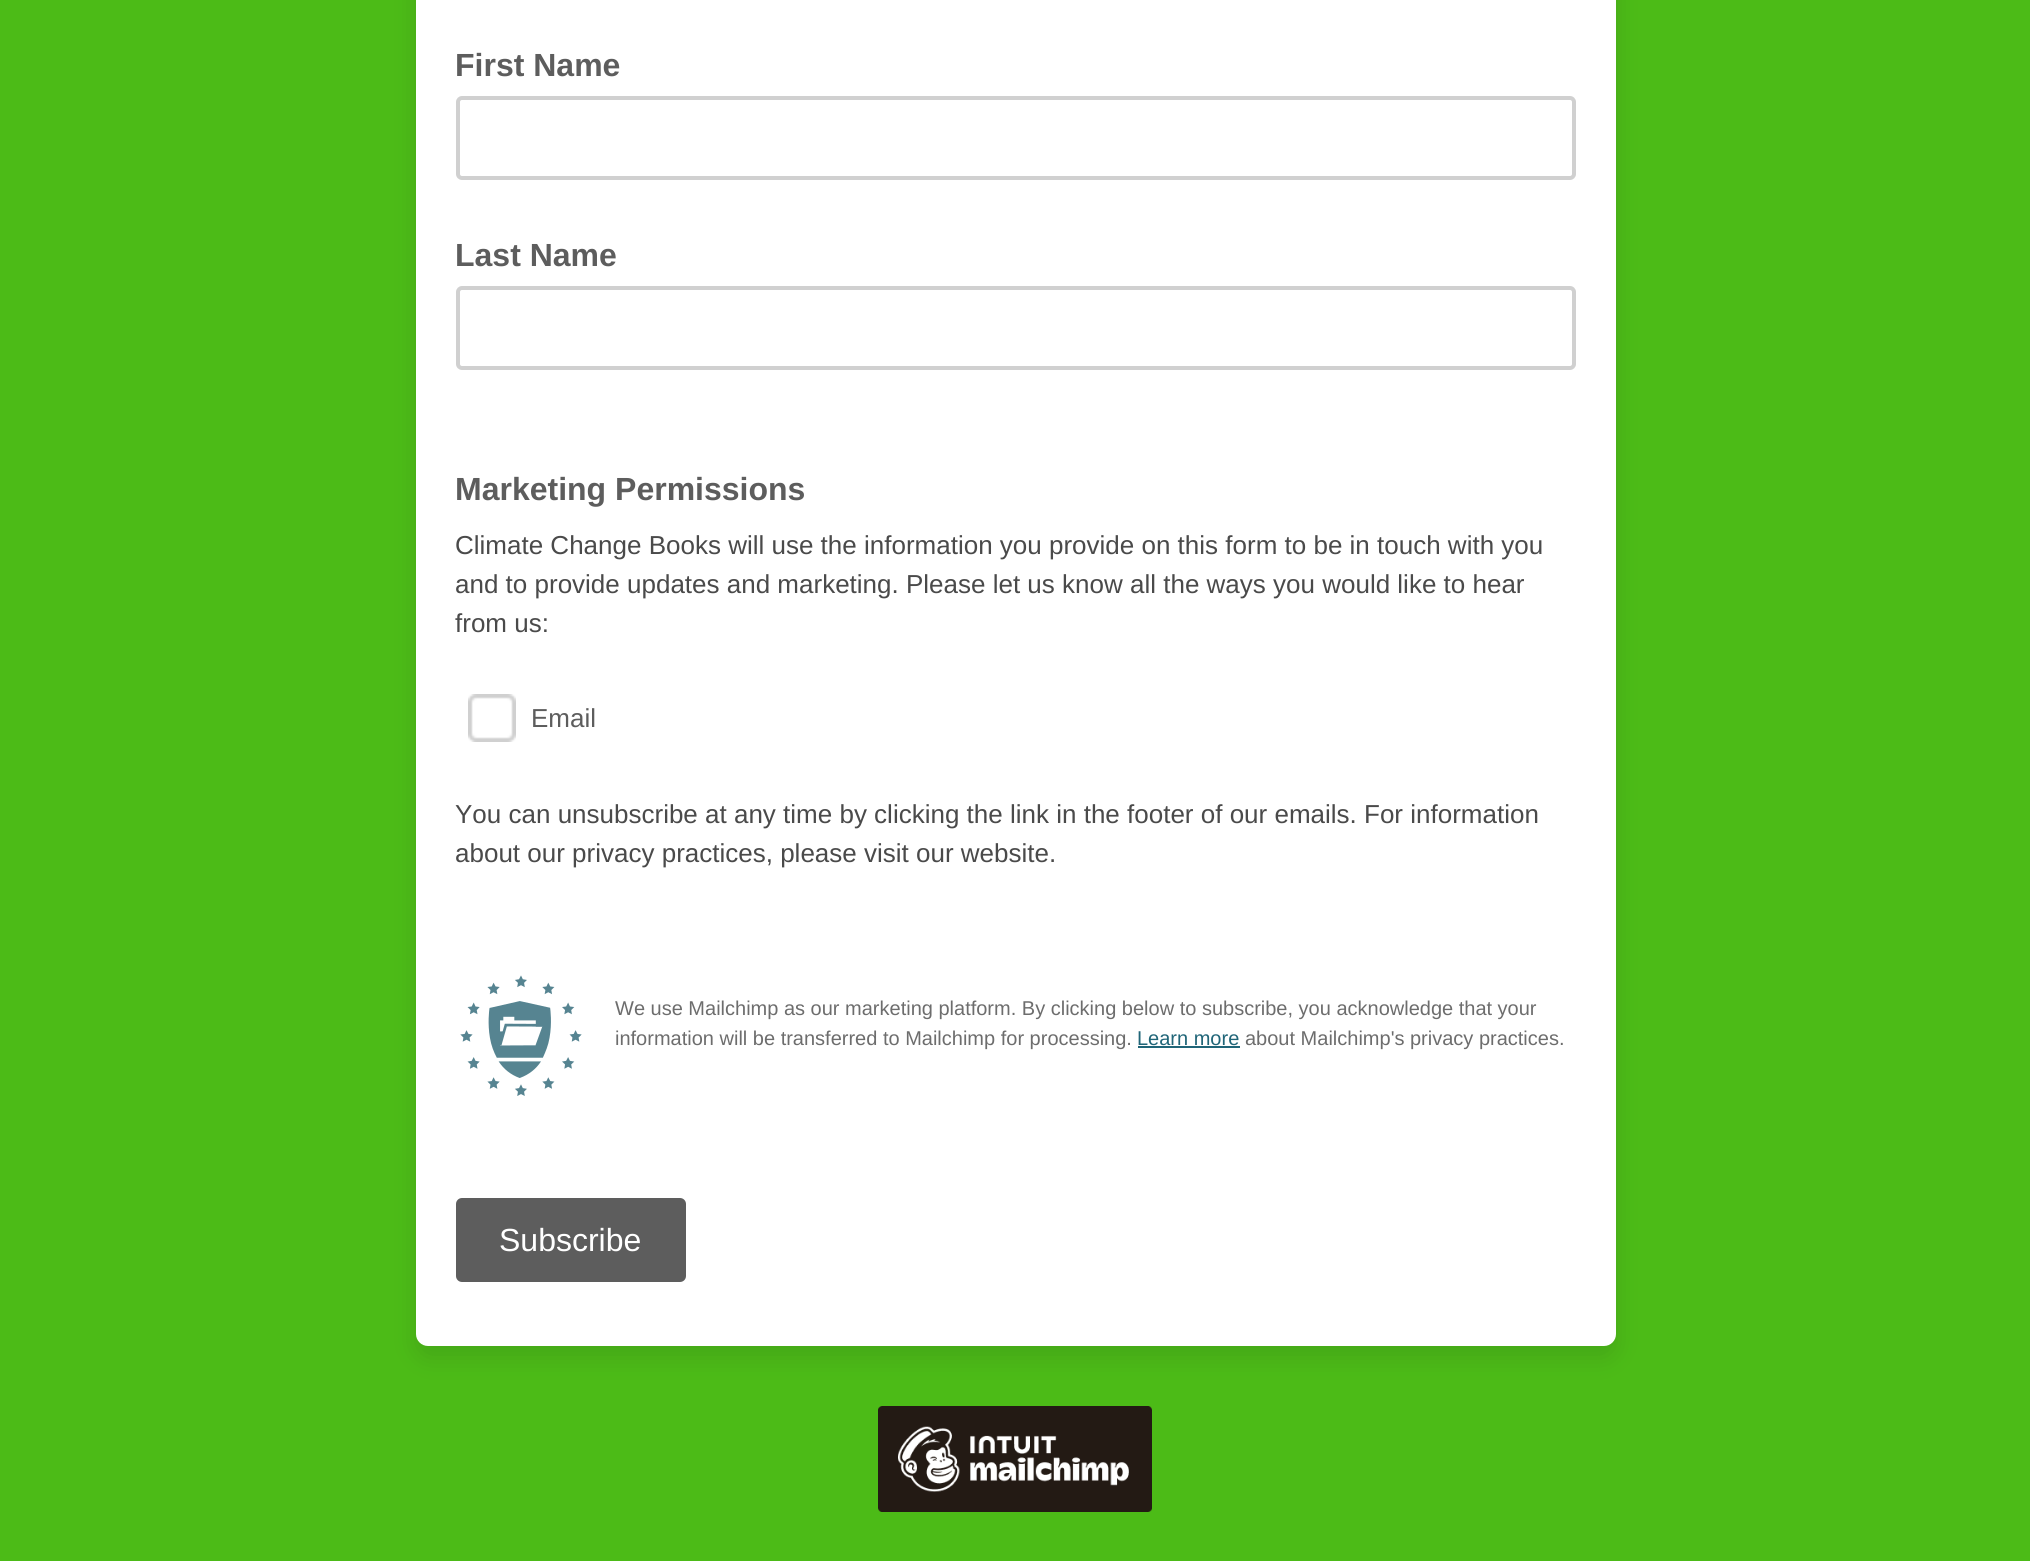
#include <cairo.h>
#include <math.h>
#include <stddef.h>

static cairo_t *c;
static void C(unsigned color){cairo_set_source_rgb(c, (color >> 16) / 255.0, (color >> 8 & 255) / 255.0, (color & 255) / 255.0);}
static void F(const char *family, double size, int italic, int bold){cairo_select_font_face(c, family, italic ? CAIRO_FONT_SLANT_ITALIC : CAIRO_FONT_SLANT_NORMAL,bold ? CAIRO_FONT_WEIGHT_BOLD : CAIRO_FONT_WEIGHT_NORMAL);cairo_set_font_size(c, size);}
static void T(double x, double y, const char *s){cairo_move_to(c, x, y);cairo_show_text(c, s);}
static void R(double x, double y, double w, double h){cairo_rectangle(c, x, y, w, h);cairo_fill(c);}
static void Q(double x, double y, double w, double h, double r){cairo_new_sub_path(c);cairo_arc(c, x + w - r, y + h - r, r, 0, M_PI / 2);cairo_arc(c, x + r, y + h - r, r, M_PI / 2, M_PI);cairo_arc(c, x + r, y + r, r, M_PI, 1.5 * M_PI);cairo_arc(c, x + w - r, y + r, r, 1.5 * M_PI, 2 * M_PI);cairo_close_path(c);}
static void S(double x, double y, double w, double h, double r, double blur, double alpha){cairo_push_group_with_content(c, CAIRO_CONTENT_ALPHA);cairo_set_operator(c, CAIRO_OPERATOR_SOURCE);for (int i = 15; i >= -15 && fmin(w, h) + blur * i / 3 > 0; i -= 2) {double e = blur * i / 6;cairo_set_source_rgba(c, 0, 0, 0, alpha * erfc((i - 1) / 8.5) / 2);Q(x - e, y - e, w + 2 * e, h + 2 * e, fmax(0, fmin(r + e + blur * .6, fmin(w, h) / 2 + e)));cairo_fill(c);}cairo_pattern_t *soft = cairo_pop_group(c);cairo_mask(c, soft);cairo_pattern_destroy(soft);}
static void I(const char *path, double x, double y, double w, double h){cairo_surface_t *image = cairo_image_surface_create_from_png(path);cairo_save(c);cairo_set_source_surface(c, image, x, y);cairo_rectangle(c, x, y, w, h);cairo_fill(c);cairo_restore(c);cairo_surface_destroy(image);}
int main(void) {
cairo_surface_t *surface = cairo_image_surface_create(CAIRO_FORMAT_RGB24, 2030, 1561);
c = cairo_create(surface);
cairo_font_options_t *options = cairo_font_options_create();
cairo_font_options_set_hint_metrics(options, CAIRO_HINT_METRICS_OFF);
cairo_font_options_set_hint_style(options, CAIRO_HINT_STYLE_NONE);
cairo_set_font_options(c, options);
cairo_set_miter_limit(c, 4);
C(0x4cbb17);
cairo_paint(c);
C(0x0d1216);
S(416,-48,1200,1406,12,12,.12);
C(0xffffff);
Q(416,-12,1200,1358,12);
cairo_fill(c);
F("Liberation Sans",32,0,1);
C(0x5d5d5d);
T(455,76,"First Name");
Q(458,98,1116,80,4);
C(0xd0d0d0);
cairo_set_line_width(c,4);
cairo_stroke(c);
C(0x5d5d5d);
T(455,266,"Last Name");
Q(458,288,1116,80,4);
C(0xd0d0d0);
cairo_stroke(c);
C(0x5d5d5d);
T(455,500,"Marketing Permissions");
F("Liberation Sans",26,0,0);
C(0x4a4a4a);
T(455,554,"Climate Change Books will use the information you provide on this form to be in touch with you");
T(455,593,"and to provide updates and marketing. Please let us know all the ways you would like to hear");
T(455,632,"from us:");
I("1.png",468,694,48,48);
C(0x5d5d5d);
T(531,727,"Email");
C(0x4a4a4a);
T(455,823,"You can unsubscribe at any time by clicking the link in the footer of our emails. For information");
T(455,862,"about our privacy practices, please visit our website.");
I("2.png",460,975,122,121);
F("Liberation Sans",20,0,0);
C(0x6d6d6d);
T(615,1015,"We use Mailchimp as our marketing platform. By clicking below to subscribe, you acknowledge that your");
T(615,1045,"information will be transferred to Mailchimp for processing.");
C(0x206578);
T(1137,1045,"Learn more");
R(1138,1046,102,2);
C(0x6d6d6d);
T(1245,1045,"about Mailchimp's privacy practices.");
C(0x5d5d5d);
Q(456,1198,230,84,6);
cairo_fill(c);
F("Liberation Sans",32,0,0);
C(0xffffff);
T(499,1251,"Subscribe");
I("3.png",878,1406,274,106);
cairo_surface_write_to_png(surface, "o.png");
cairo_font_options_destroy(options);
cairo_destroy(c);
cairo_surface_destroy(surface);
return 0;
}
